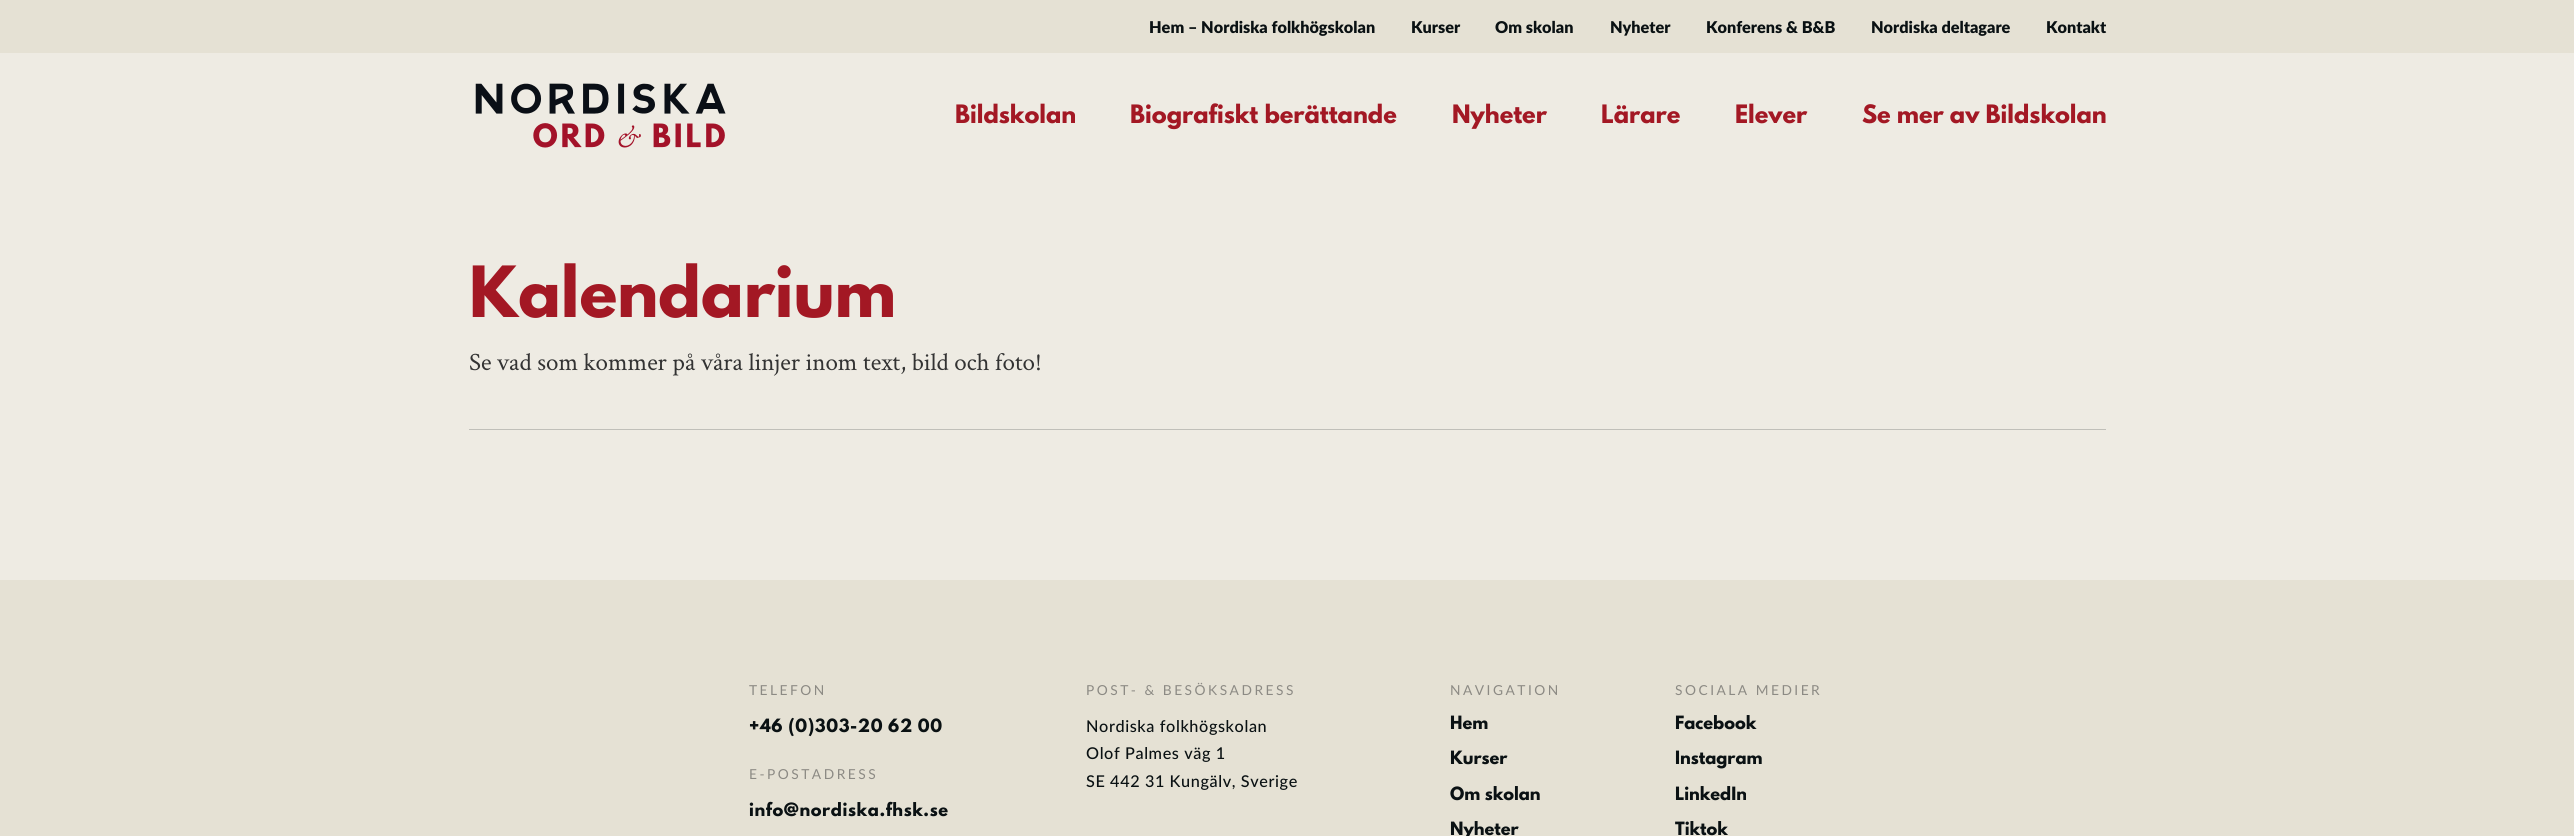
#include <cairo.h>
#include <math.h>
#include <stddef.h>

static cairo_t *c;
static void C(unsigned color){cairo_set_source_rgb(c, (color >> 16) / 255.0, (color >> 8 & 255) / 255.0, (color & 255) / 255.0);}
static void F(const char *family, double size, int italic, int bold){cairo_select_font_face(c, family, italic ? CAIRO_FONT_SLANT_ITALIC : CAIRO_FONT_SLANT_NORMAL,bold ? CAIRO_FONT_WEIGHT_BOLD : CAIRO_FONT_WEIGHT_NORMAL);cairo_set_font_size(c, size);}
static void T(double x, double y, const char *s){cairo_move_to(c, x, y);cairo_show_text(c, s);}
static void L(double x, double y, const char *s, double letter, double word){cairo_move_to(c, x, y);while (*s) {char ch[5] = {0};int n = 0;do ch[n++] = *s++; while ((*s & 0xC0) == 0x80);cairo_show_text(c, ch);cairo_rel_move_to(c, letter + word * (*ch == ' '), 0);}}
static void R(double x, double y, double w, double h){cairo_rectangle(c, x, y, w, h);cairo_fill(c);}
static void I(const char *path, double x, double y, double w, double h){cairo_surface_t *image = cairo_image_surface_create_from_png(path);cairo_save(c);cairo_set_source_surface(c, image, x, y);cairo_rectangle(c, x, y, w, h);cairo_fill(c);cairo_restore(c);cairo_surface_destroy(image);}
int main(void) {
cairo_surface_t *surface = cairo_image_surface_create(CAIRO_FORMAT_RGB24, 2574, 836);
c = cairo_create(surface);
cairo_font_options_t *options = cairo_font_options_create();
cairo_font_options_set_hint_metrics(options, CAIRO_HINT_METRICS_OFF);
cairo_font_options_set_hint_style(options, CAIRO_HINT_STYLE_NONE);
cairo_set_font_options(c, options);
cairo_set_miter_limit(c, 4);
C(0xeeebe3);
cairo_paint(c);
C(0xe5e1d4);
R(0,0,2574,53);
F("Lato Black",16.25,0,0);
C(0x0a1113);
T(1149,33,"Hem – Nordiska folkhögskolan");
T(1411,33,"Kurser");
T(1495,33,"Om skolan");
T(1610,33,"Nyheter");
T(1706,33,"Konferens & B&B");
T(1871,33,"Nordiska deltagare");
T(2046,33,"Kontakt");
I("1.png",475,83,251,65);
F("League Spartan",22.5,0,1);
C(0xa31824);
T(955,123,"Bildskolan");
T(1130,123,"Biografiskt berättande");
T(1452,123,"Nyheter");
T(1601,123,"Lärare");
T(1735,123,"Elever");
T(1862,123,"Se mer av Bildskolan");
F("League Spartan",62.5,0,1);
T(469,317,"Kalendarium");
F("Crimson Text",25,0,0);
C(0x333333);
T(469,370,"Se vad som kommer på våra linjer inom text, bild och foto!");
C(0xc0bfb9);
R(469,429,1637,1);
C(0xe5e1d4);
R(0,580,2574,256);
F("Lato",13.75,0,0);
C(0x8c8a84);
L(749,695,"TELEFON",2.5,0);
F("League Spartan",16.25,0,1);
C(0x0a1113);
L(749,732,"+46 (0)303-20 62 00",.6,0);
F("Lato",13.75,0,0);
C(0x8c8a84);
L(749,779,"E-POSTADRESS",2.5,0);
F("League Spartan",16.25,0,1);
C(0x0a1113);
L(749,816,"info@nordiska.fhsk.se",.6,0);
F("Lato",13.75,0,0);
C(0x8c8a84);
L(1086,695,"POST- & BESÖKSADRESS",2.5,0);
F("Lato Medium",16.25,0,0);
C(0x0a1113);
L(1086,732,"Nordiska folkhögskolan",.6,0);
L(1086,759,"Olof Palmes väg 1",.6,0);
L(1086,787,"SE 442 31 Kungälv, Sverige",.6,0);
F("Lato",13.75,0,0);
C(0x8c8a84);
L(1450,695,"NAVIGATION",2.5,0);
F("League Spartan",16.25,0,1);
C(0x0a1113);
T(1450,729,"Hem");
T(1450,764,"Kurser");
T(1450,800,"Om skolan");
T(1450,835,"Nyheter");
F("Lato",13.75,0,0);
C(0x8c8a84);
L(1675,695,"SOCIALA MEDIER",2.5,0);
F("League Spartan",16.25,0,1);
C(0x0a1113);
T(1675,729,"Facebook");
T(1675,764,"Instagram");
T(1675,800,"LinkedIn");
T(1675,835,"Tiktok");
cairo_surface_write_to_png(surface, "o.png");
cairo_font_options_destroy(options);
cairo_destroy(c);
cairo_surface_destroy(surface);
return 0;
}
